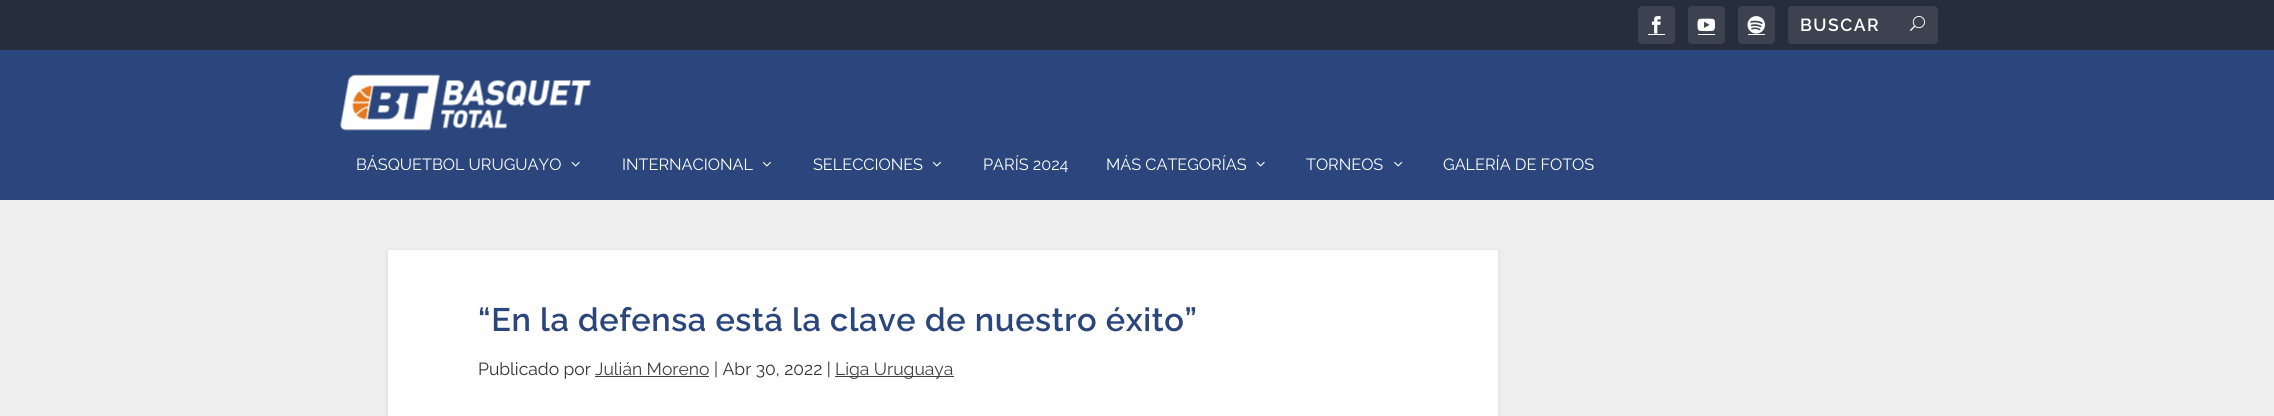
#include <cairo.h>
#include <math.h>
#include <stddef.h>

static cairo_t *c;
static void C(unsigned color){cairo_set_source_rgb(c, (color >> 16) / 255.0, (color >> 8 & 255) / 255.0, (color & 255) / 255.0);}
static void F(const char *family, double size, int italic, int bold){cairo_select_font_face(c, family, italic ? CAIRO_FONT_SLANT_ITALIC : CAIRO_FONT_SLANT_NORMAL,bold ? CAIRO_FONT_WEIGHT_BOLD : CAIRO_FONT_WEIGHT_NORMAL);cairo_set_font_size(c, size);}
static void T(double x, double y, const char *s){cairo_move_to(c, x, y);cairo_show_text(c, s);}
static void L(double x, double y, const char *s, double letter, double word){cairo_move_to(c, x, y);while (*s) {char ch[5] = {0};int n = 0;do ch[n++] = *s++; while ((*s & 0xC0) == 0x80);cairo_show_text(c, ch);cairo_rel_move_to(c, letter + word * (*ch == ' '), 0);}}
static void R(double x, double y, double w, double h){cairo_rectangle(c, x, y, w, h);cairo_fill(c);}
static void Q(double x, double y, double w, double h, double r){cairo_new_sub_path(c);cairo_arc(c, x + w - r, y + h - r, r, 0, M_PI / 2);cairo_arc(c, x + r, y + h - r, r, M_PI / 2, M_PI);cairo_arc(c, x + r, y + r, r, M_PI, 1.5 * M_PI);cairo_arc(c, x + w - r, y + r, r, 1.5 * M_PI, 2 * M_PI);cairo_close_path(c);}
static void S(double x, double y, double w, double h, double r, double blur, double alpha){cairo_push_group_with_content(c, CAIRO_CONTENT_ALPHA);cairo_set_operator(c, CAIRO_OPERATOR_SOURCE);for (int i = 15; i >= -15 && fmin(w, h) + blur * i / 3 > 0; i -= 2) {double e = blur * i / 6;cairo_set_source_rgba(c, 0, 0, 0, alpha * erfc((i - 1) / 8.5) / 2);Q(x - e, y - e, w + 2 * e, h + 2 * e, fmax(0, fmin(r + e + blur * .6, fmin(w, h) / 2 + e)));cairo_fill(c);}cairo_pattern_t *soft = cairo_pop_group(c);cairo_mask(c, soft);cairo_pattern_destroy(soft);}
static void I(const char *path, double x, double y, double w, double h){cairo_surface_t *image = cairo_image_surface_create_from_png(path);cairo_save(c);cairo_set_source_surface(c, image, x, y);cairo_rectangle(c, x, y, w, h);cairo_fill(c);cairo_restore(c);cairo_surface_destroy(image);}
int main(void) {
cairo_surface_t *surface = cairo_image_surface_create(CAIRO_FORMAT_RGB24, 2274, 416);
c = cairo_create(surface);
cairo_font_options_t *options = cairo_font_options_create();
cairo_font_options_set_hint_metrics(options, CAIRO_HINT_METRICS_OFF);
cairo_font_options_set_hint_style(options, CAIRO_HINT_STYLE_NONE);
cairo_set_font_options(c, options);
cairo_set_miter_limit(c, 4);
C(0xeeeeee);
cairo_paint(c);
C(0x262d3b);
R(0,0,2274,50);
C(0x3c424f);
Q(1638,6,37,38,4);
cairo_fill(c);
I("1.png",1651,16,10,18);
C(0xffffff);
R(1648,34,17,1);
C(0x3c424f);
Q(1688,6,37,38,4);
cairo_fill(c);
I("2.png",1697,18,18,14);
C(0xffffff);
R(1698,34,17,1);
C(0x3c424f);
Q(1738,6,37,38,4);
cairo_fill(c);
I("3.png",1747,16,18,18);
C(0xffffff);
R(1748,34,17,1);
C(0x3c424f);
Q(1788,6,150,38,4);
cairo_fill(c);
F("Raleway SemiBold",17.5,0,0);
C(0xffffff);
L(1800,31,"BUSCAR",1.5,0);
I("4.png",1910,15,15,16);
C(0x2a467c);
R(0,50,2274,150);
I("5.png",340,74,251,57);
F("Raleway",16.25,0,0);
C(0xffffff);
T(356,170,"BÁSQUETBOL URUGUAYO");
I("6.png",571,161,9,6);
T(622,170,"INTERNACIONAL");
I("7.png",762,161,9,6);
T(813,170,"SELECCIONES");
I("7.png",932,161,9,6);
T(983,170,"PARÍS 2024");
T(1106,170,"MÁS CATEGORÍAS");
I("6.png",1256,161,9,6);
T(1306,170,"TORNEOS");
I("8.png",1394,161,9,6);
T(1443,170,"GALERÍA DE FOTOS");
C(0x000000);
S(388,251,1110,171,0,2,.1);
C(0xffffff);
R(388,250,1110,166);
F("Raleway SemiBold",32.5,0,0);
C(0x2a467c);
L(478,331,"“En la defensa está la clave de nuestro éxito”",.6,0);
F("Raleway",17.5,0,0);
C(0x333333);
T(478,375,"Publicado por");
C(0x404040);
T(595,375,"Julián Moreno");
R(595,376,114,1);
C(0x333333);
T(714,375,"| Abr 30, 2022 |");
C(0x404040);
R(835,376,119,1);
T(835,375,"Liga Uruguaya");
cairo_surface_write_to_png(surface, "o.png");
cairo_font_options_destroy(options);
cairo_destroy(c);
cairo_surface_destroy(surface);
return 0;
}
